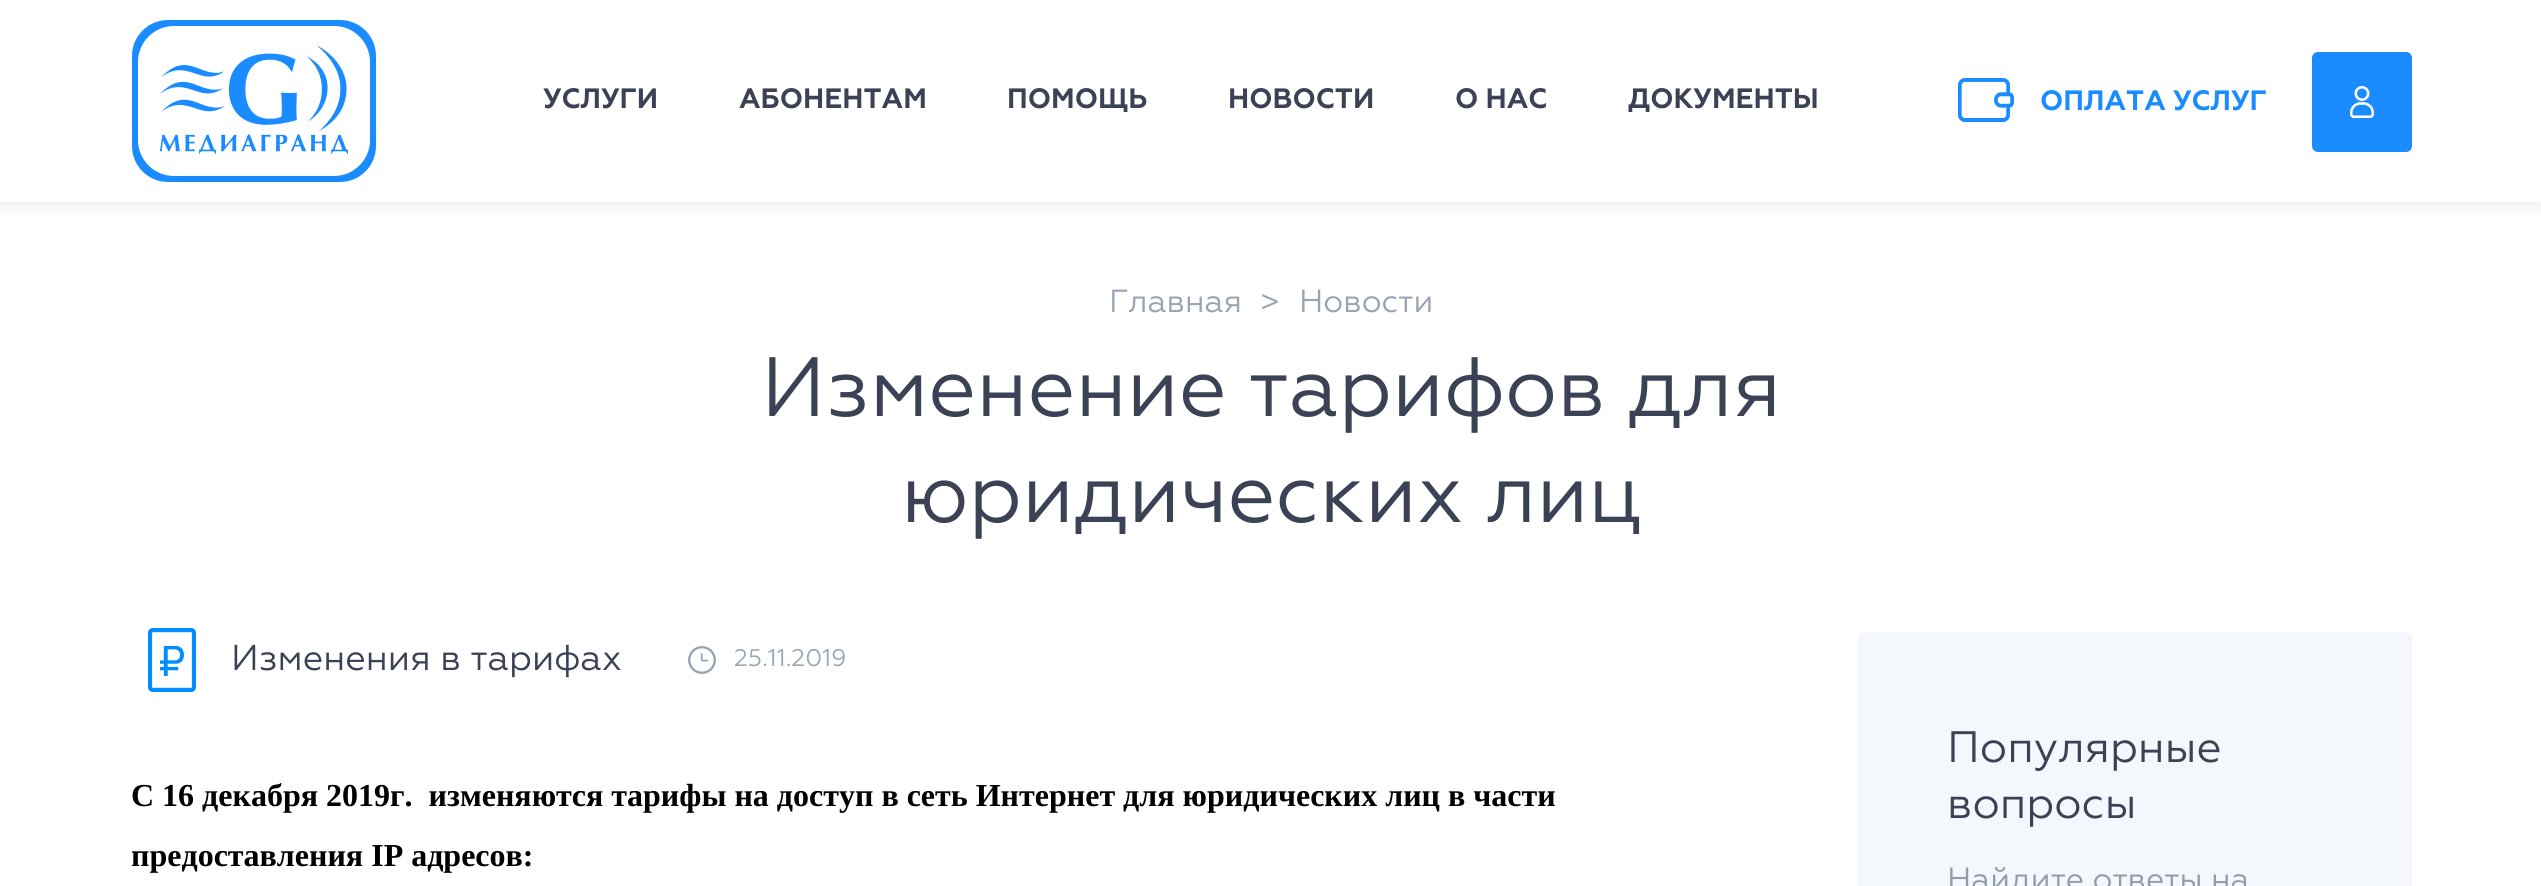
#include <cairo.h>
#include <math.h>
#include <stddef.h>

static cairo_t *c;
static void C(unsigned color){cairo_set_source_rgb(c, (color >> 16) / 255.0, (color >> 8 & 255) / 255.0, (color & 255) / 255.0);}
static void F(const char *family, double size, int italic, int bold){cairo_select_font_face(c, family, italic ? CAIRO_FONT_SLANT_ITALIC : CAIRO_FONT_SLANT_NORMAL,bold ? CAIRO_FONT_WEIGHT_BOLD : CAIRO_FONT_WEIGHT_NORMAL);cairo_set_font_size(c, size);}
static void T(double x, double y, const char *s){cairo_move_to(c, x, y);cairo_show_text(c, s);}
static void Q(double x, double y, double w, double h, double r){cairo_new_sub_path(c);cairo_arc(c, x + w - r, y + h - r, r, 0, M_PI / 2);cairo_arc(c, x + r, y + h - r, r, M_PI / 2, M_PI);cairo_arc(c, x + r, y + r, r, M_PI, 1.5 * M_PI);cairo_arc(c, x + w - r, y + r, r, 1.5 * M_PI, 2 * M_PI);cairo_close_path(c);}
static void S(double x, double y, double w, double h, double r, double blur, double alpha){cairo_push_group_with_content(c, CAIRO_CONTENT_ALPHA);cairo_set_operator(c, CAIRO_OPERATOR_SOURCE);for (int i = 15; i >= -15 && fmin(w, h) + blur * i / 3 > 0; i -= 2) {double e = blur * i / 6;cairo_set_source_rgba(c, 0, 0, 0, alpha * erfc((i - 1) / 8.5) / 2);Q(x - e, y - e, w + 2 * e, h + 2 * e, fmax(0, fmin(r + e + blur * .6, fmin(w, h) / 2 + e)));cairo_fill(c);}cairo_pattern_t *soft = cairo_pop_group(c);cairo_mask(c, soft);cairo_pattern_destroy(soft);}
static void I(const char *path, double x, double y, double w, double h){cairo_surface_t *image = cairo_image_surface_create_from_png(path);cairo_save(c);cairo_set_source_surface(c, image, x, y);cairo_rectangle(c, x, y, w, h);cairo_fill(c);cairo_restore(c);cairo_surface_destroy(image);}
int main(void) {
cairo_surface_t *surface = cairo_image_surface_create(CAIRO_FORMAT_RGB24, 2541, 886);
c = cairo_create(surface);
cairo_font_options_t *options = cairo_font_options_create();
cairo_font_options_set_hint_metrics(options, CAIRO_HINT_METRICS_OFF);
cairo_font_options_set_hint_style(options, CAIRO_HINT_STYLE_NONE);
cairo_set_font_options(c, options);
cairo_set_miter_limit(c, 4);
C(0xffffff);
cairo_paint(c);
cairo_save(c);
cairo_rectangle(c,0,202,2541,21);
cairo_clip(c);
C(0xe1e4e8);
S(0,0,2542,202,0,10,1);
cairo_restore(c);
I("1.png",132,20,244,162);
F("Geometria",28,0,1);
C(0x3b4256);
T(543,108,"УСЛУГИ");
T(739,108,"АБОНЕНТАМ");
T(1007,108,"ПОМОЩЬ");
T(1228,108,"НОВОСТИ");
T(1455,108,"О НАС");
T(1628,108,"ДОКУМЕНТЫ");
I("2.png",1958,78,56,44);
C(0x1a8cff);
T(2040,110,"ОПЛАТА УСЛУГ");
Q(2312,52,100,100,6);
cairo_fill(c);
I("3.png",2350,86,24,32);
F("Geometria",32,0,0);
C(0x97a4b1);
T(1109,312,"Главная");
T(1260,312,">");
T(1299,312,"Новости");
F("Geometria",84,0,0);
C(0x3b4256);
T(761,416,"Изменение тарифов для");
T(901,522,"юридических лиц");
I("4.png",148,628,48,64);
F("Geometria",36,0,0);
T(231,670,"Изменения в тарифах");
I("5.png",688,646,28,28);
F("Geometria",24,0,0);
C(0x97a4b1);
T(734,666,"25.11.2019");
F("Liberation Serif",32,0,1);
C(0x000000);
T(131,806,"С 16 декабря 2019г.  изменяются тарифы на доступ в сеть Интернет для юридических лиц в части");
T(131,866,"предоставления IP адресов:");
C(0xf4f7fc);
Q(1858,632,554,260,6);
cairo_fill(c);
F("Geometria",44,0,0);
C(0x3b4256);
T(1947,762,"Популярные");
T(1947,818,"вопросы");
F("Geometria",32,0,0);
C(0x909da9);
T(1947,890,"Найдите ответы на");
cairo_surface_write_to_png(surface, "o.png");
cairo_font_options_destroy(options);
cairo_destroy(c);
cairo_surface_destroy(surface);
return 0;
}
